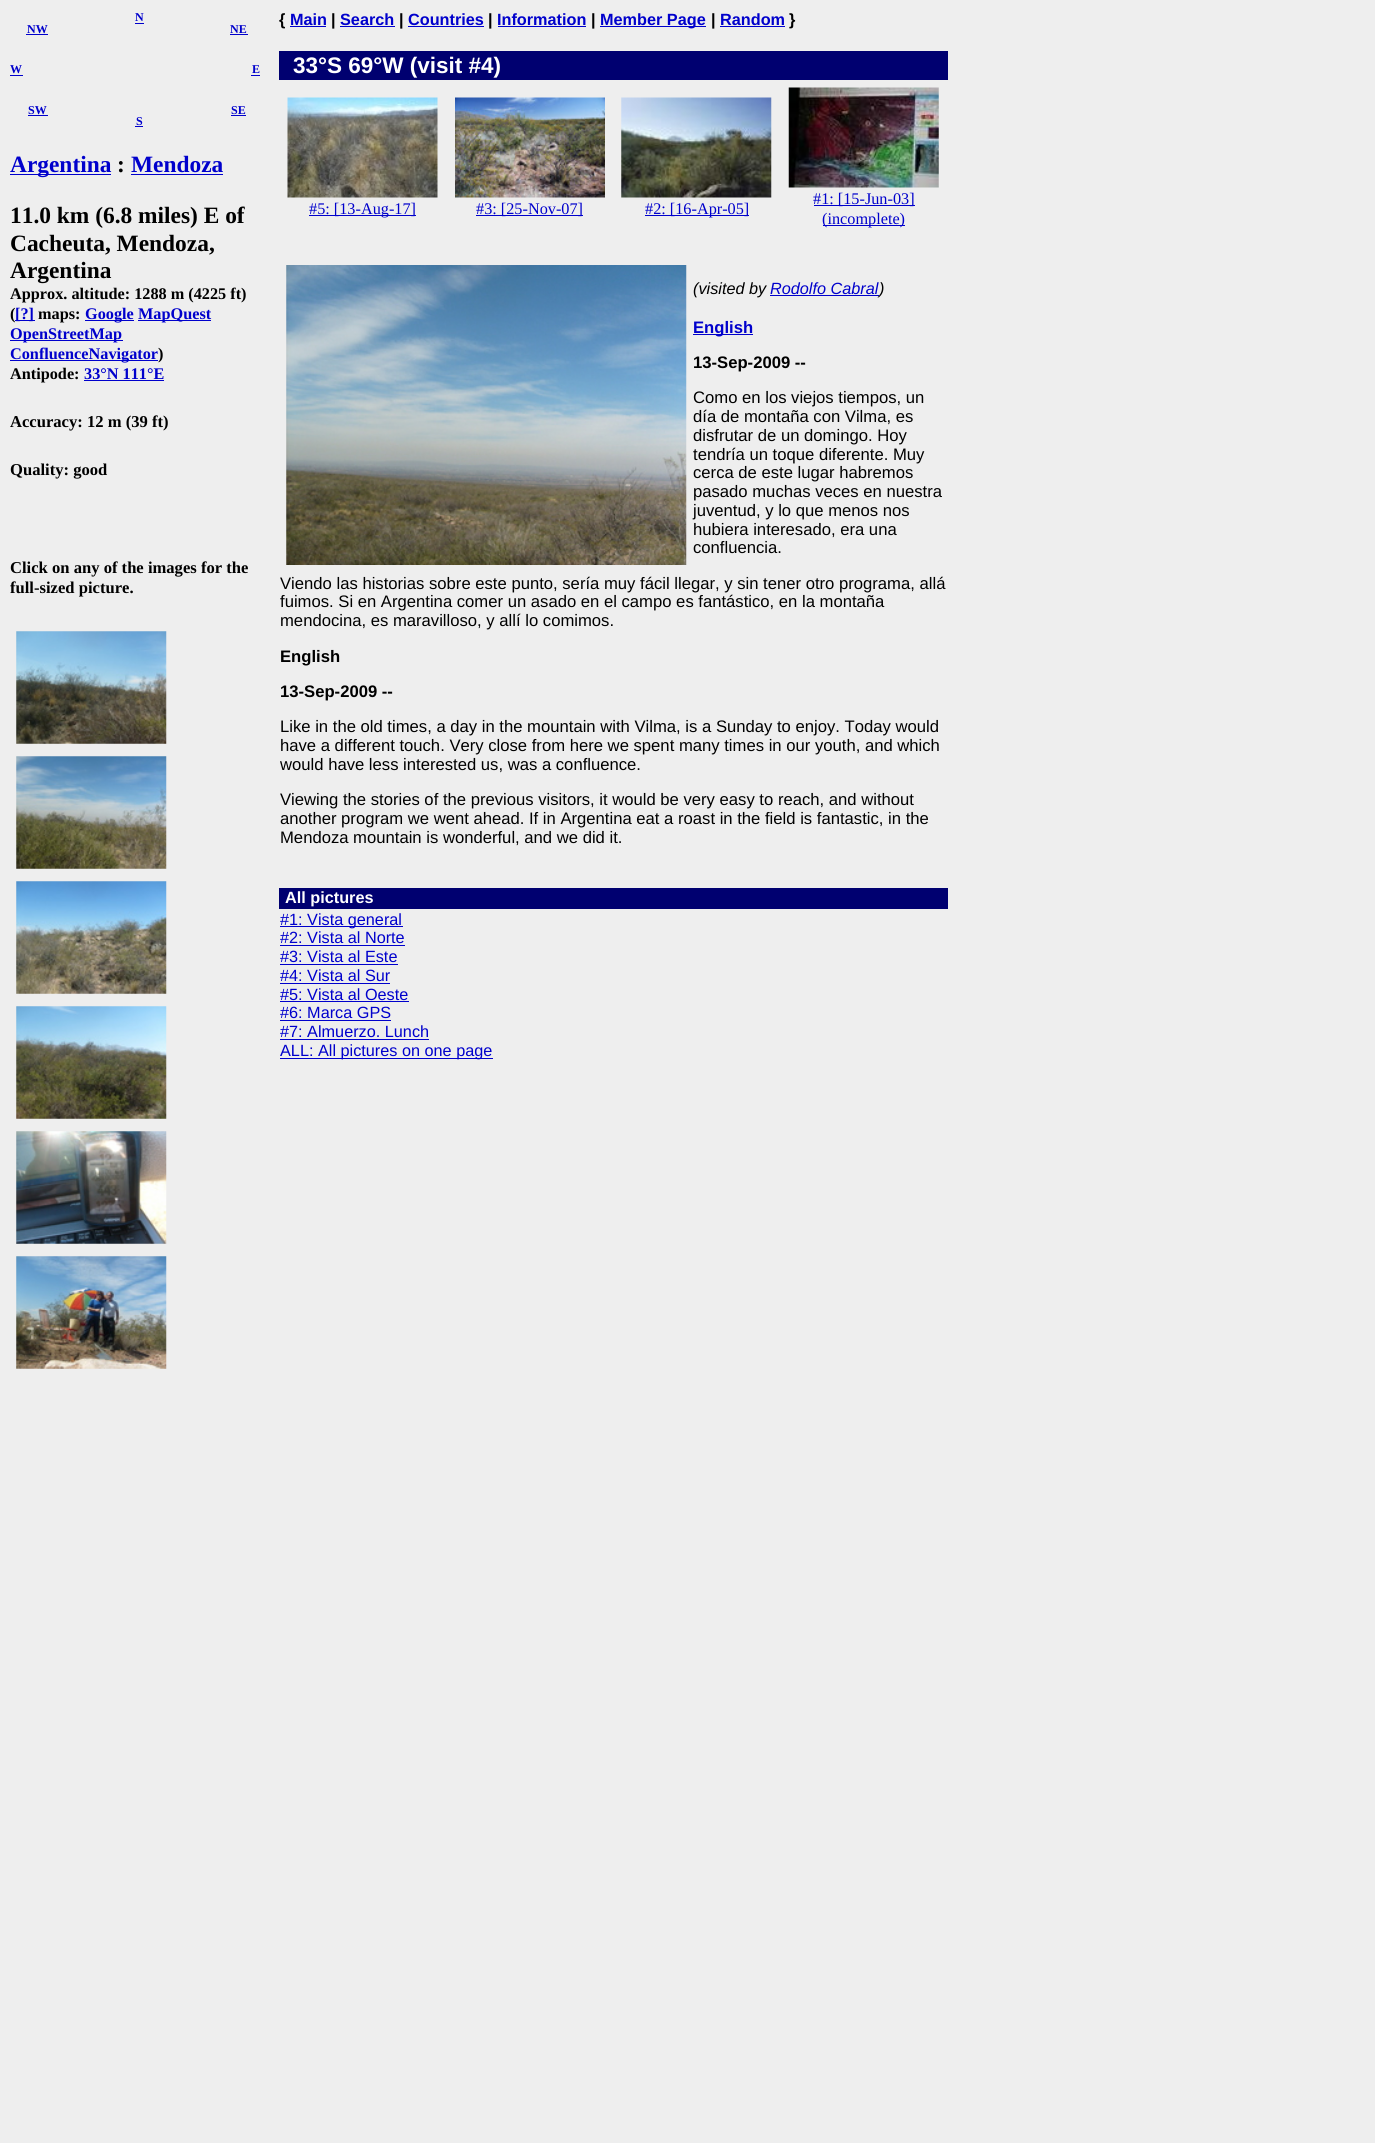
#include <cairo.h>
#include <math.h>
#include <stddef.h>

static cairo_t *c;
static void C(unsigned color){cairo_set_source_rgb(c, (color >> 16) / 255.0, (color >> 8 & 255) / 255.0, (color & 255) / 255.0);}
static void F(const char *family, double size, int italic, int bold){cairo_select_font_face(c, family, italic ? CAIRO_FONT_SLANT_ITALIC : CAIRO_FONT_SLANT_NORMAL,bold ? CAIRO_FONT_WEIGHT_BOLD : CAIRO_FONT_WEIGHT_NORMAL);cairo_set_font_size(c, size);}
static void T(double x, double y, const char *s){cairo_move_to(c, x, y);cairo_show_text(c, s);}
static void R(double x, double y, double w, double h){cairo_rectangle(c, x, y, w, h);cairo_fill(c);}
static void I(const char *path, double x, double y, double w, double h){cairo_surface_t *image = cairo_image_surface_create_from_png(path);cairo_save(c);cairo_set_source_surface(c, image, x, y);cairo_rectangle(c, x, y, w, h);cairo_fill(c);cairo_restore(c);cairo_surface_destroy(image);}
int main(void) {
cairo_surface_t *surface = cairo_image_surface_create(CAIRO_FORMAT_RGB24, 1375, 2143);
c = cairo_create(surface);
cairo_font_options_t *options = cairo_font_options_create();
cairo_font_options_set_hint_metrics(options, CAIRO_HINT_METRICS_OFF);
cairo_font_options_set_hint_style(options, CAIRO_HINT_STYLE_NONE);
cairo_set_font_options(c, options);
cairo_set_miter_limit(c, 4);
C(0xeeeeee);
cairo_paint(c);
F("Liberation Serif",12,0,1);
C(0x0000cc);
T(10,73,"W");
R(10,75,13,1);
T(135,21,"N");
R(135,23,9,1);
T(27,33,"NW");
R(26,34,22,1);
T(230,33,"NE");
R(230,34,18,1);
T(28,114,"SW");
R(28,115,20,1);
T(231,114,"SE");
R(231,115,15,1);
T(136,125,"S");
R(135,126,8,1);
T(252,73,"E");
R(251,75,9,1);
R(10,174,101,1);
F("Liberation Serif",23.4,0,1);
T(10,172,"Argentina");
C(0x000000);
T(117,172,":");
C(0x0000cc);
T(131,172,"Mendoza");
R(131,174,92,1);
C(0x000000);
T(10,223,"11.0 km (6.8 miles) E of");
T(10,251,"Cacheuta, Mendoza,");
T(10,278,"Argentina");
F("Liberation Serif",16.25,0,1);
T(10,299,"Approx. altitude: 1288 m (4225 ft)");
T(10,319,"(");
C(0x0000cc);
R(15,320,20,1);
T(15,319,"[?]");
C(0x000000);
T(38,319,"maps:");
C(0x0000cc);
R(85,320,49,1);
T(85,319,"Google");
R(138,320,73,1);
T(138,319,"MapQuest");
R(10,340,113,1);
T(10,339,"OpenStreetMap");
R(10,360,148,1);
T(10,359,"ConfluenceNavigator");
C(0x000000);
T(158,359,")");
T(10,379,"Antipode:");
C(0x0000cc);
T(84,379,"33°N 111°E");
R(84,380,80,1);
F("Liberation Serif",16.6,0,1);
C(0x000000);
T(10,427,"Accuracy: 12 m (39 ft)");
T(10,475,"Quality: good");
T(10,573,"Click on any of the images for the");
T(10,593,"full-sized picture.");
I("1.png",16,631,151,113);
I("2.png",16,756,151,113);
I("3.png",16,881,151,113);
I("4.png",16,1006,151,113);
I("5.png",16,1131,151,113);
I("6.png",16,1256,151,113);
F("Liberation Sans",16.25,0,1);
T(279,25,"{");
C(0x0000cc);
T(290,25,"Main");
R(290,26,36,1);
C(0x000000);
T(331,25,"|");
C(0x0000cc);
T(340,25,"Search");
R(340,26,55,1);
C(0x000000);
T(399,25,"|");
C(0x0000cc);
T(408,25,"Countries");
R(408,26,76,1);
C(0x000000);
T(488,25,"|");
C(0x0000cc);
T(497,25,"Information");
R(498,26,88,1);
C(0x000000);
T(591,25,"|");
C(0x0000cc);
R(600,26,106,1);
T(600,25,"Member Page");
C(0x000000);
T(711,25,"|");
C(0x0000cc);
T(720,25,"Random");
R(720,26,65,1);
C(0x000000);
T(789,25,"}");
C(0x000070);
R(279,51,669,29);
F("Liberation Sans",22.5,0,1);
C(0xffffff);
T(293,73,"33°S 69°W (visit #4)");
I("7.png",287,97,151,101);
C(0x0000cc);
R(309,215,107,1);
F("Liberation Serif",16.25,0,0);
T(309,214,"#5: [13-Aug-17]");
I("8.png",455,97,150,101);
R(476,215,107,1);
T(476,214,"#3: [25-Nov-07]");
I("9.png",621,97,151,101);
R(645,215,104,1);
T(645,214,"#2: [16-Apr-05]");
I("10.png",788,87,151,101);
R(814,205,101,1);
T(813,204,"#1: [15-Jun-03]");
R(823,225,82,1);
T(822,224,"(incomplete)");
I("11.png",286,265,401,300);
F("Liberation Sans",16.25,1,0);
C(0x000000);
T(693,294,"(visited by");
C(0x0000cc);
T(770,294,"Rodolfo Cabral");
R(770,295,109,1);
C(0x000000);
T(879,294,")");
C(0x0000cc);
R(693,334,60,1);
F("Liberation Sans",16.65,0,1);
T(693,333,"English");
C(0x000000);
T(693,368,"13-Sep-2009 --");
F("Liberation Sans",16.65,0,0);
T(693,403,"Como en los viejos tiempos, un");
T(693,422,"día de montaña con Vilma, es");
T(693,441,"disfrutar de un domingo. Hoy");
T(693,460,"tendría un toque diferente. Muy");
T(693,478,"cerca de este lugar habremos");
T(693,497,"pasado muchas veces en nuestra");
T(693,516,"juventud, y lo que menos nos");
T(693,535,"hubiera interesado, era una");
T(693,553,"confluencia.");
T(280,589,"Viendo las historias sobre este punto, sería muy fácil llegar, y sin tener otro programa, allá");
T(280,607,"fuimos. Si en Argentina comer un asado en el campo es fantástico, en la montaña");
T(280,626,"mendocina, es maravilloso, y allí lo comimos.");
F("Liberation Sans",16.65,0,1);
T(280,662,"English");
T(280,697,"13-Sep-2009 --");
F("Liberation Sans",16.65,0,0);
T(280,732,"Like in the old times, a day in the mountain with Vilma, is a Sunday to enjoy. Today would");
T(280,751,"have a different touch. Very close from here we spent many times in our youth, and which");
T(280,770,"would have less interested us, was a confluence.");
T(280,805,"Viewing the stories of the previous visitors, it would be very easy to reach, and without");
T(280,824,"another program we went ahead. If in Argentina eat a roast in the field is fantastic, in the");
T(280,843,"Mendoza mountain is wonderful, and we did it.");
C(0x000070);
R(279,888,669,21);
F("Liberation Sans",16.25,0,1);
C(0xffffff);
T(285,903,"All pictures");
C(0x0000cc);
R(280,926,123,1);
F("Liberation Sans",16.25,0,0);
T(280,925,"#1: Vista general");
T(280,943,"#2: Vista al Norte");
R(280,945,125,1);
T(280,962,"#3: Vista al Este");
R(280,964,118,1);
T(280,981,"#4: Vista al Sur");
R(280,983,110,1);
T(280,1000,"#5: Vista al Oeste");
R(280,1001,129,1);
T(280,1018,"#6: Marca GPS");
R(280,1020,111,1);
T(280,1037,"#7: Almuerzo. Lunch");
R(280,1039,149,1);
R(280,1058,213,1);
T(280,1056,"ALL: All pictures on one page");
cairo_surface_write_to_png(surface, "o.png");
cairo_font_options_destroy(options);
cairo_destroy(c);
cairo_surface_destroy(surface);
return 0;
}
